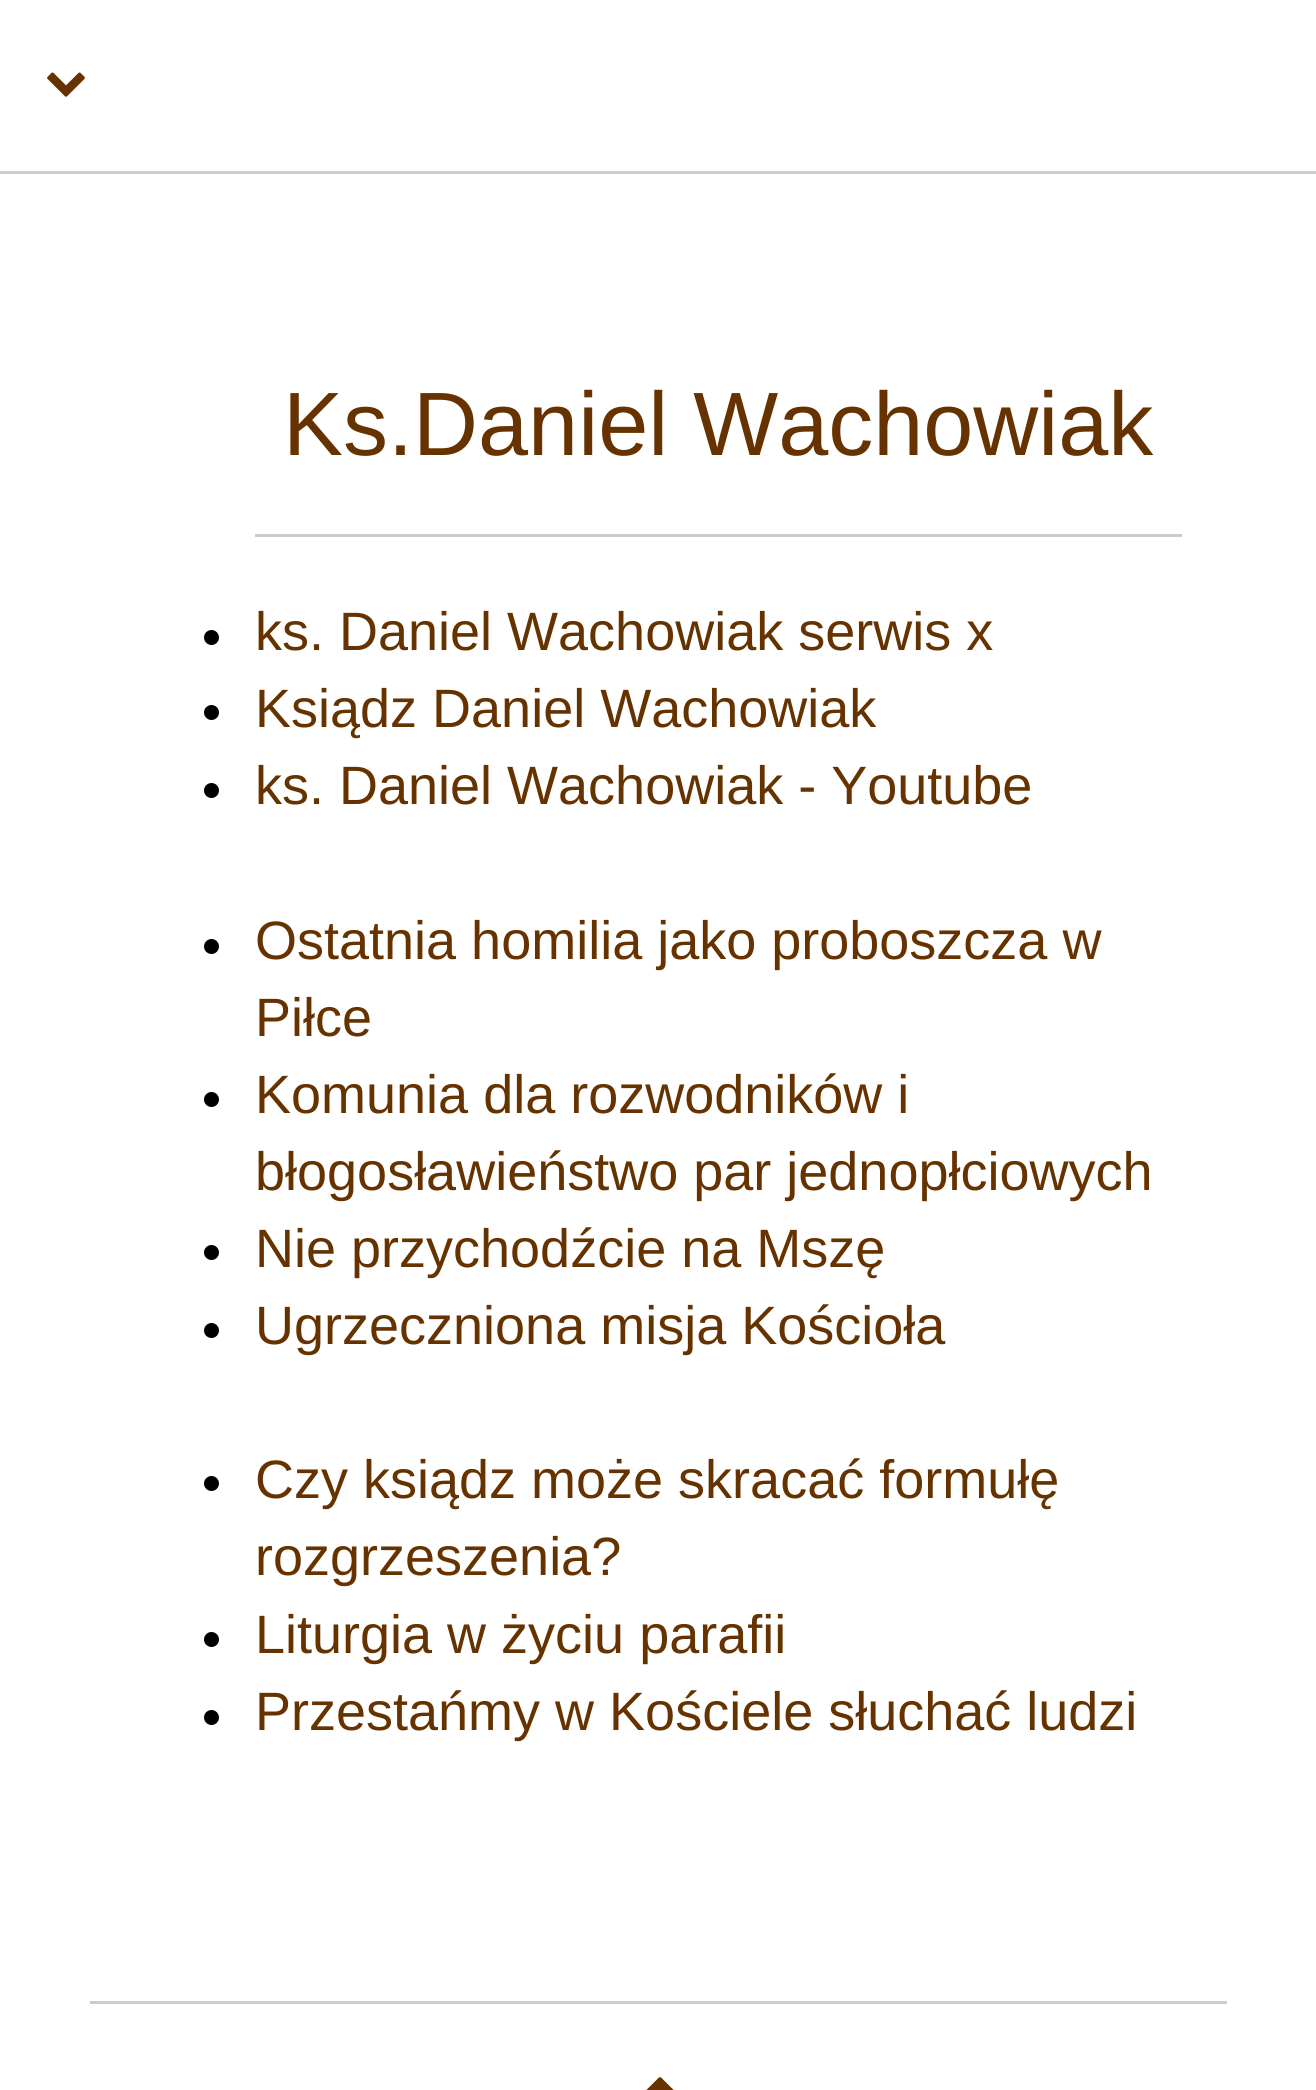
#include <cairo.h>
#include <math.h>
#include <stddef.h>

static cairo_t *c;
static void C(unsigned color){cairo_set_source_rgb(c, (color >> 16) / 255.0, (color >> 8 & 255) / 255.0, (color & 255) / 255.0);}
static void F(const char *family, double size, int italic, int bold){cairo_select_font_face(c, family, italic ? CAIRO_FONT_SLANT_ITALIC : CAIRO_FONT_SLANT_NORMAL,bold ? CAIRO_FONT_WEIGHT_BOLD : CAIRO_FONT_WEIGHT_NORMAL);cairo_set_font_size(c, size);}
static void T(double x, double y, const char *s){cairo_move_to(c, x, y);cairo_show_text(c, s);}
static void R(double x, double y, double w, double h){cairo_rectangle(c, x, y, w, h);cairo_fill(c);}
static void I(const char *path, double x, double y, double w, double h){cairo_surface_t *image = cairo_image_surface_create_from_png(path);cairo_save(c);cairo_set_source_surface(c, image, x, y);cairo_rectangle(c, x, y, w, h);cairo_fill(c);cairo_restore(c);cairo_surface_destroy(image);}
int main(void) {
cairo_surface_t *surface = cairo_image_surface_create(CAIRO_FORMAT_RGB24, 1316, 2090);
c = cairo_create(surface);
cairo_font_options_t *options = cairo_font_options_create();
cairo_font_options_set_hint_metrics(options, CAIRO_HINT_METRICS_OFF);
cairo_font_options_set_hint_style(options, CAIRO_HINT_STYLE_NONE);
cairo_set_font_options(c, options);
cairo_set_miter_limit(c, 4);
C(0xffffff);
cairo_paint(c);
I("1.png",47,72,38,25);
C(0xcccccc);
R(0,171,1316,3);
F("Liberation Sans",90,0,0);
C(0x663300);
T(283,455,"Ks.Daniel Wachowiak");
C(0xcccccc);
R(255,534,927,3);
C(0x000000);
cairo_new_path(c);
cairo_arc(c,211.5,637.5,7.5,0,2 * M_PI);
cairo_fill(c);
F("Liberation Sans",54,0,0);
C(0x663300);
T(255,650,"ks. Daniel Wachowiak serwis x");
C(0x000000);
cairo_new_path(c);
cairo_arc(c,211.5,712.5,7.5,0,2 * M_PI);
cairo_fill(c);
C(0x663300);
T(255,727,"Ksiądz Daniel Wachowiak");
C(0x000000);
cairo_new_path(c);
cairo_arc(c,211.5,790.5,7.5,0,2 * M_PI);
cairo_fill(c);
C(0x663300);
T(255,804,"ks. Daniel Wachowiak - Youtube");
C(0x000000);
cairo_new_path(c);
cairo_arc(c,211.5,946.5,7.5,0,2 * M_PI);
cairo_fill(c);
C(0x663300);
T(255,959,"Ostatnia homilia jako proboszcza w");
T(255,1036,"Piłce");
C(0x000000);
cairo_new_path(c);
cairo_arc(c,211.5,1099.5,7.5,0,2 * M_PI);
cairo_fill(c);
C(0x663300);
T(255,1113,"Komunia dla rozwodników i");
T(255,1190,"błogosławieństwo par jednopłciowych");
C(0x000000);
cairo_new_path(c);
cairo_arc(c,211.5,1252.5,7.5,0,2 * M_PI);
cairo_fill(c);
C(0x663300);
T(255,1267,"Nie przychodźcie na Mszę");
C(0x000000);
cairo_new_path(c);
cairo_arc(c,211.5,1330.5,7.5,0,2 * M_PI);
cairo_fill(c);
C(0x663300);
T(255,1344,"Ugrzeczniona misja Kościoła");
C(0x000000);
cairo_new_path(c);
cairo_arc(c,211.5,1483.5,7.5,0,2 * M_PI);
cairo_fill(c);
C(0x663300);
T(255,1498,"Czy ksiądz może skracać formułę");
T(255,1575,"rozgrzeszenia?");
C(0x000000);
cairo_new_path(c);
cairo_arc(c,211.5,1639.5,7.5,0,2 * M_PI);
cairo_fill(c);
C(0x663300);
T(255,1653,"Liturgia w życiu parafii");
C(0x000000);
cairo_new_path(c);
cairo_arc(c,211.5,1717.5,7.5,0,2 * M_PI);
cairo_fill(c);
C(0x663300);
T(255,1730,"Przestańmy w Kościele słuchać ludzi");
C(0xcccccc);
R(90,2001,1137,3);
I("2.png",646,2077,28,13);
cairo_surface_write_to_png(surface, "o.png");
cairo_font_options_destroy(options);
cairo_destroy(c);
cairo_surface_destroy(surface);
return 0;
}
